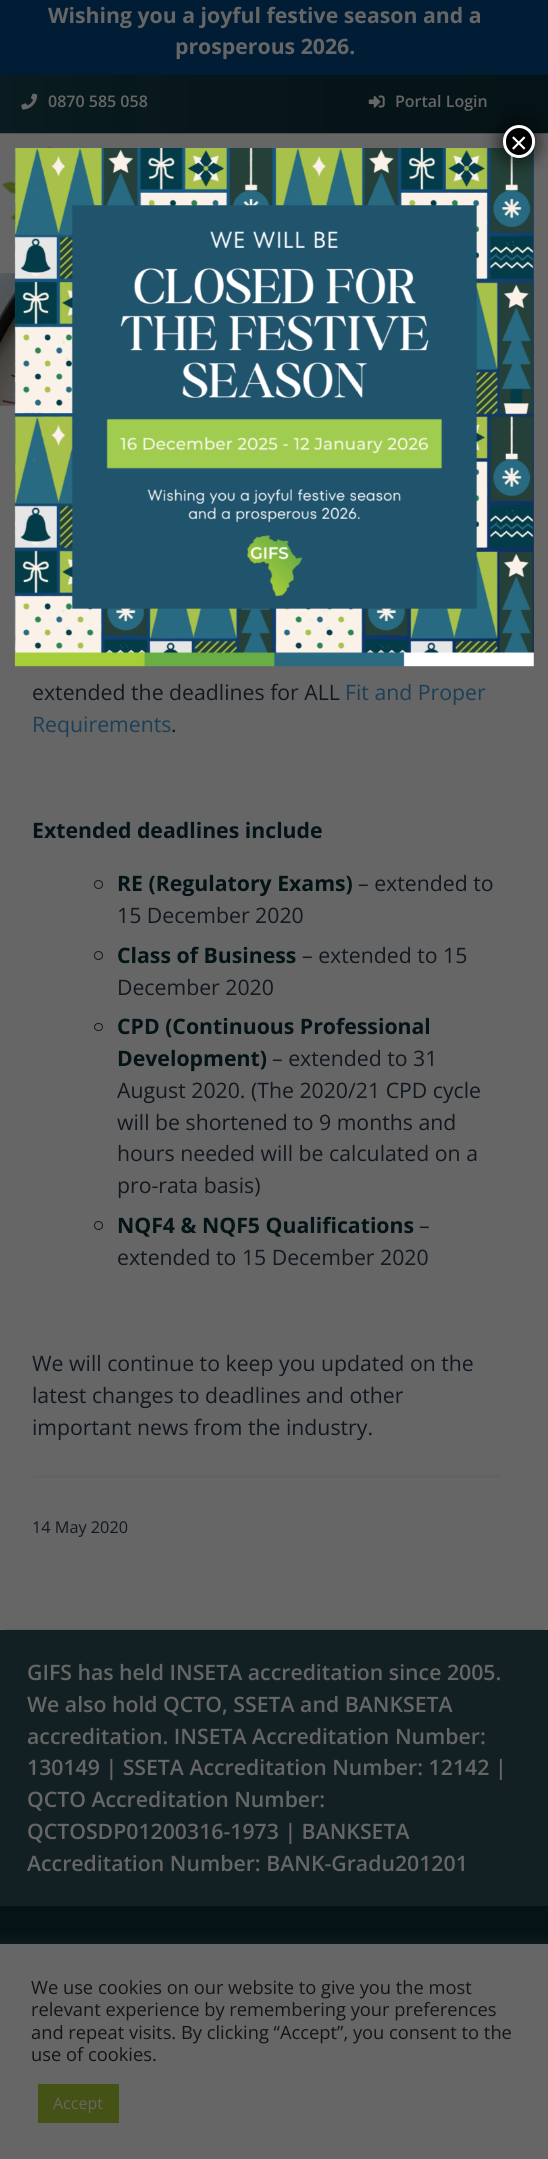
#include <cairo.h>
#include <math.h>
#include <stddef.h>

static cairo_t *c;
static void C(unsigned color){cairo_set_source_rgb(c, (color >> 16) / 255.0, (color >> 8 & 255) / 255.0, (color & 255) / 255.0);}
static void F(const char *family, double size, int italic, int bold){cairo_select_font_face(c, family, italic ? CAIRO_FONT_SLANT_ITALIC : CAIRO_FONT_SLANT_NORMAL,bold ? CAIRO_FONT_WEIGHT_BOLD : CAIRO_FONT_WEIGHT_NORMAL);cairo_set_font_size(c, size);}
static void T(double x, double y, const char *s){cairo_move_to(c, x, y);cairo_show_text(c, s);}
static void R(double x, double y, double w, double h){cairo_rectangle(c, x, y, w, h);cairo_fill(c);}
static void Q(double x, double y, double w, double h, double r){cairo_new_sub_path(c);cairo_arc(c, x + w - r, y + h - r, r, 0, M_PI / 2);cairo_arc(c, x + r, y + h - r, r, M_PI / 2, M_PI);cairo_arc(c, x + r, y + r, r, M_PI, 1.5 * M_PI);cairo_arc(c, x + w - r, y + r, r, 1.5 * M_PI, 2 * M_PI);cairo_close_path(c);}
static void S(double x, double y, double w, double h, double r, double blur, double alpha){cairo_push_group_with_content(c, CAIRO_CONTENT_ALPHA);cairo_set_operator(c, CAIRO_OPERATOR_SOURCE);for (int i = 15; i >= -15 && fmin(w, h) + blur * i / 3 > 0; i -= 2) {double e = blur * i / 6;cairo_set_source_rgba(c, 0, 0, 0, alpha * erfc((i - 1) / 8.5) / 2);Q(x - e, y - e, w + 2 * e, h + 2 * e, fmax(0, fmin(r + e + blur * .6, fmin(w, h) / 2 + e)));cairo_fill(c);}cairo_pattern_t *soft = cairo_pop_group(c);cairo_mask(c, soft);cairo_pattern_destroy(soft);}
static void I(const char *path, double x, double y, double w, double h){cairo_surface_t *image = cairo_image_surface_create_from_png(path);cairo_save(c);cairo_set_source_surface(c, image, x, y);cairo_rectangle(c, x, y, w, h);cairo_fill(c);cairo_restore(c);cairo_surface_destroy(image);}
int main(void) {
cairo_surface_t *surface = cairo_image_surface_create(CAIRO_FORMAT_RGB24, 548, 2159);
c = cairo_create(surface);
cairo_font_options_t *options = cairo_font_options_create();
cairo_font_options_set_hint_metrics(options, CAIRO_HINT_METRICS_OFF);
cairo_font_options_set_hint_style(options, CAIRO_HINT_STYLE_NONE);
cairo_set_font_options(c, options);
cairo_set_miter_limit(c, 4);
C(0x666666);
cairo_paint(c);
C(0x011d35);
R(0,0,548,75);
F("Open Sans",21.25,0,1);
C(0x666666);
T(48,23,"Wishing you a joyful festive season and a");
T(175,54,"prosperous 2026.");
I("1.png",0,75,548,59);
I("2.png",21,93,17,17);
F("Open Sans SemiBold",16,0,0);
T(48,107,"0870 585 058");
I("3.png",368,95,17,13);
T(395,107,"Portal Login");
I("5.png",1,146,435,104);
I("6.png",0,273,15,133);
I("4.png",14,148,520,519);
C(0x020202);
S(501,124,35,35,17.5,9.5,.75);
C(0x000000);
Q(504.5,126.5,29,30,14.5);
cairo_fill_preserve(c);
C(0xffffff);
cairo_set_line_width(c,3);
cairo_stroke(c);
F("Liberation Sans",30,0,0);
T(510,153,"×");
F("Open Sans",21.25,0,0);
C(0x12181f);
T(32,700,"extended the deadlines for ALL");
C(0x1c3e57);
T(345,700,"Fit and Proper");
T(32,732,"Requirements");
C(0x12181f);
T(171,732,".");
F("Open Sans",21.25,0,1);
C(0x041316);
T(32,838,"Extended deadlines include");
cairo_new_path(c);
cairo_arc(c,98.5,884.5,4,0,2 * M_PI);
C(0x12181f);
cairo_set_line_width(c,1);
cairo_stroke(c);
C(0x041316);
T(117,891,"RE (Regulatory Exams)");
F("Open Sans",21.25,0,0);
C(0x12181f);
T(358,891,"– extended to");
T(117,923,"15 December 2020");
cairo_new_path(c);
cairo_arc(c,98.5,955.5,4,0,2 * M_PI);
cairo_stroke(c);
F("Open Sans",21.25,0,1);
C(0x041316);
T(117,963,"Class of Business");
F("Open Sans",21.25,0,0);
C(0x12181f);
T(302,963,"– extended to 15");
T(117,995,"December 2020");
Q(94.5,1023.5,8,7,3.5);
cairo_stroke(c);
F("Open Sans",21.25,0,1);
C(0x041316);
T(117,1034,"CPD (Continuous Professional");
T(117,1066,"Development)");
F("Open Sans",21.25,0,0);
C(0x12181f);
T(272,1066,"– extended to 31");
T(117,1098,"August 2020. (The 2020/21 CPD cycle");
T(117,1130,"will be shortened to 9 months and");
T(117,1161,"hours needed will be calculated on a");
T(117,1193,"pro-rata basis)");
cairo_new_path(c);
cairo_arc(c,98.5,1225.5,4,0,2 * M_PI);
cairo_stroke(c);
F("Open Sans",21.25,0,1);
C(0x041316);
T(117,1233,"NQF4 & NQF5 Qualifications");
F("Open Sans",21.25,0,0);
C(0x12181f);
T(419,1233,"–");
T(117,1265,"extended to 15 December 2020");
T(32,1371,"We will continue to keep you updated on the");
T(32,1403,"latest changes to deadlines and other");
T(32,1435,"important news from the industry.");
C(0x626262);
R(33,1475,466,3);
F("Open Sans",16.25,0,0);
C(0x12181f);
T(32,1533,"14 May 2020");
Q(-.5,1629.5,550,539,8.5);
C(0x5c5c5c);
cairo_stroke(c);
C(0x132023);
R(0,1630,548,276);
F("Open Sans SemiBold",21.25,0,0);
C(0x666666);
T(27,1680,"GIFS has held INSETA accreditation since 2005.");
T(27,1712,"We also hold QCTO, SSETA and BANKSETA");
T(27,1744,"accreditation. INSETA Accreditation Number:");
T(27,1775,"130149 | SSETA Accreditation Number: 12142 |");
T(27,1807,"QCTO Accreditation Number:");
T(27,1839,"QCTOSDP01200316-1973 | BANKSETA");
T(27,1871,"Accreditation Number: BANK-Gradu201201");
C(0x041316);
R(0,1906,548,38);
C(0x454444);
S(0,1943,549,216,0,6,.3);
C(0x666666);
R(0,1944,548,215);
F("Open Sans",18.3,0,0);
C(0x141414);
T(31,1994,"We use cookies on our website to give you the most");
T(31,2016,"relevant experience by remembering your preferences");
T(31,2039,"and repeat visits. By clicking “Accept”, you consent to the");
T(31,2061,"use of cookies.");
C(0x445215);
R(38,2084,81,39);
F("Open Sans",16,0,0);
C(0x666666);
T(53,2109,"Accept");
cairo_surface_write_to_png(surface, "o.png");
cairo_font_options_destroy(options);
cairo_destroy(c);
cairo_surface_destroy(surface);
return 0;
}
